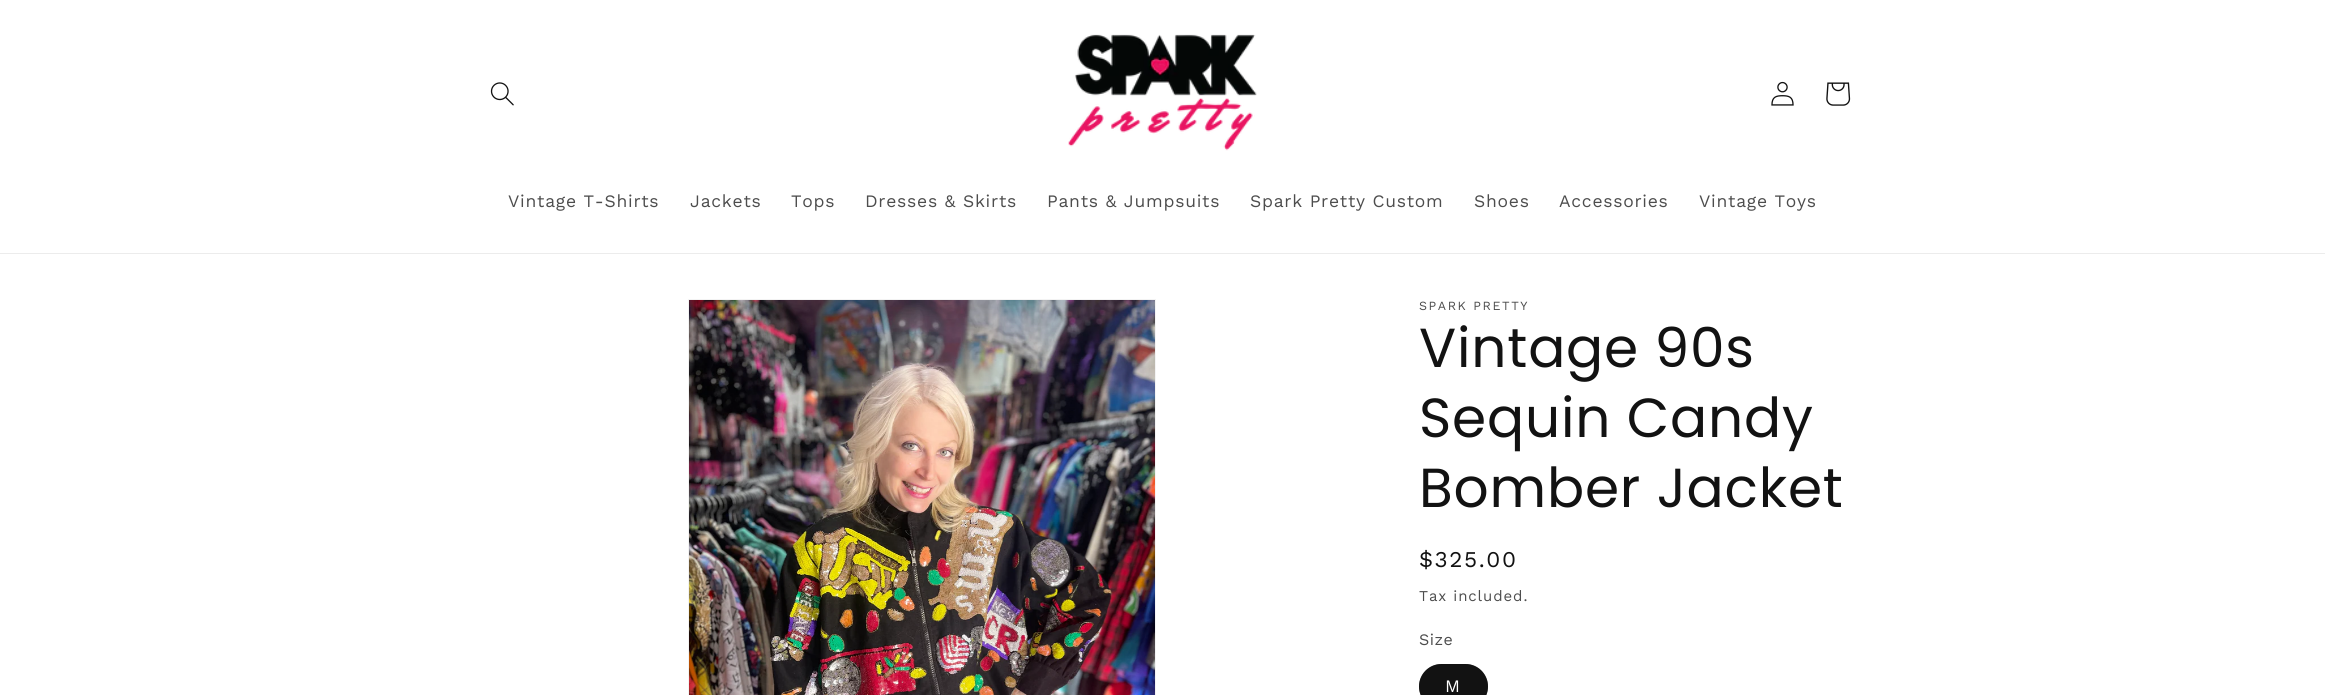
#include <cairo.h>
#include <math.h>
#include <stddef.h>

static cairo_t *c;
static void C(unsigned color){cairo_set_source_rgb(c, (color >> 16) / 255.0, (color >> 8 & 255) / 255.0, (color & 255) / 255.0);}
static void F(const char *family, double size, int italic, int bold){cairo_select_font_face(c, family, italic ? CAIRO_FONT_SLANT_ITALIC : CAIRO_FONT_SLANT_NORMAL,bold ? CAIRO_FONT_WEIGHT_BOLD : CAIRO_FONT_WEIGHT_NORMAL);cairo_set_font_size(c, size);}
static void L(double x, double y, const char *s, double letter, double word){cairo_move_to(c, x, y);while (*s) {char ch[5] = {0};int n = 0;do ch[n++] = *s++; while ((*s & 0xC0) == 0x80);cairo_show_text(c, ch);cairo_rel_move_to(c, letter + word * (*ch == ' '), 0);}}
static void R(double x, double y, double w, double h){cairo_rectangle(c, x, y, w, h);cairo_fill(c);}
static void Q(double x, double y, double w, double h, double r){cairo_new_sub_path(c);cairo_arc(c, x + w - r, y + h - r, r, 0, M_PI / 2);cairo_arc(c, x + r, y + h - r, r, M_PI / 2, M_PI);cairo_arc(c, x + r, y + r, r, M_PI, 1.5 * M_PI);cairo_arc(c, x + w - r, y + r, r, 1.5 * M_PI, 2 * M_PI);cairo_close_path(c);}
static void I(const char *path, double x, double y, double w, double h){cairo_surface_t *image = cairo_image_surface_create_from_png(path);cairo_save(c);cairo_set_source_surface(c, image, x, y);cairo_rectangle(c, x, y, w, h);cairo_fill(c);cairo_restore(c);cairo_surface_destroy(image);}
int main(void) {
cairo_surface_t *surface = cairo_image_surface_create(CAIRO_FORMAT_RGB24, 2325, 695);
c = cairo_create(surface);
cairo_font_options_t *options = cairo_font_options_create();
cairo_font_options_set_hint_metrics(options, CAIRO_HINT_METRICS_OFF);
cairo_font_options_set_hint_style(options, CAIRO_HINT_STYLE_NONE);
cairo_set_font_options(c, options);
cairo_set_miter_limit(c, 4);
C(0xffffff);
cairo_paint(c);
C(0xececec);
R(0,253,2325,1);
I("1.png",490,82,24,24);
I("2.png",1068,34,189,117);
I("3.png",1771,81,23,25);
I("4.png",1826,82,25,24);
F("Work Sans",17.5,0,0);
C(0x4d4d4d);
L(508,207,"Vintage T-Shirts",.75,0);
L(690,207,"Jackets",.75,0);
L(791,207,"Tops",.75,0);
L(865,207,"Dresses & Skirts",.75,0);
L(1047,207,"Pants & Jumpsuits",.75,0);
L(1250,207,"Spark Pretty Custom",.75,0);
L(1474,207,"Shoes",.75,0);
L(1559,207,"Accessories",.75,0);
L(1699,207,"Vintage Toys",.75,0);
cairo_rectangle(c,688.5,299.5,467,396);
C(0xf3f3f3);
cairo_set_line_width(c,1);
cairo_stroke(c);
I("5.png",689,300,466,395);
F("Work Sans",12.5,0,0);
C(0x4d4d4d);
L(1419,310,"SPARK PRETTY",1.6,0);
F("Poppins",55,0,0);
C(0x121212);
L(1419,367,"Vintage 90s",.8,0);
L(1419,437,"Sequin Candy",.8,0);
L(1419,507,"Bomber Jacket",.8,0);
F("Work Sans",22.5,0,0);
L(1419,567,"$325.00",1.6,0);
F("Work Sans",15,0,0);
C(0x4d4d4d);
L(1419,601,"Tax included.",.9,0);
F("Work Sans",16,0,0);
L(1419,645,"Size",.5,0);
C(0x121212);
Q(1419,664,69,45,22.5);
cairo_fill(c);
Q(1419.5,664.5,68,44,22);
cairo_set_source_rgba(c,0.071,0.071,0.071,0.55);
cairo_stroke(c);
F("Work Sans",17.5,0,0);
C(0xffffff);
L(1445,692,"M",1,0);
cairo_surface_write_to_png(surface, "o.png");
cairo_font_options_destroy(options);
cairo_destroy(c);
cairo_surface_destroy(surface);
return 0;
}
